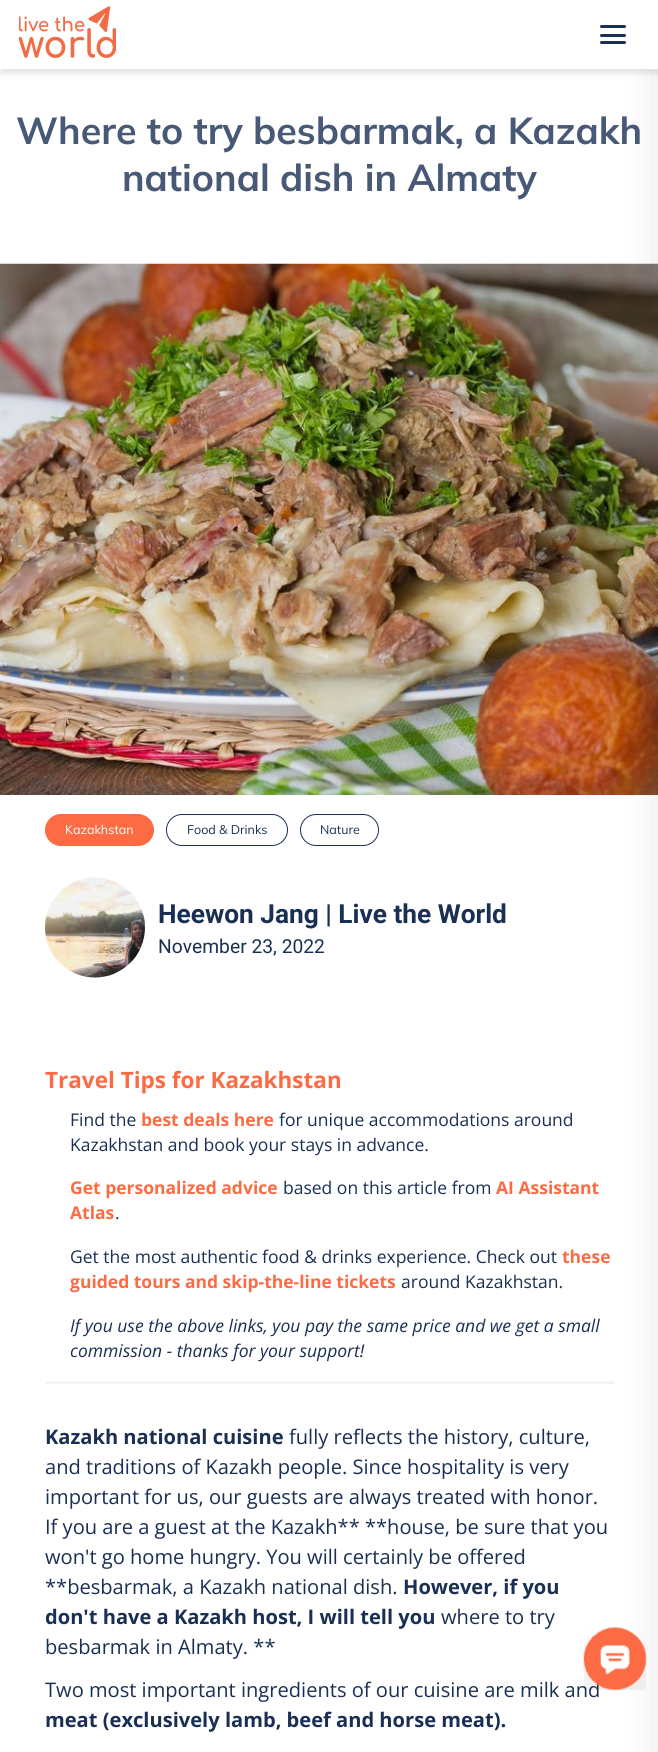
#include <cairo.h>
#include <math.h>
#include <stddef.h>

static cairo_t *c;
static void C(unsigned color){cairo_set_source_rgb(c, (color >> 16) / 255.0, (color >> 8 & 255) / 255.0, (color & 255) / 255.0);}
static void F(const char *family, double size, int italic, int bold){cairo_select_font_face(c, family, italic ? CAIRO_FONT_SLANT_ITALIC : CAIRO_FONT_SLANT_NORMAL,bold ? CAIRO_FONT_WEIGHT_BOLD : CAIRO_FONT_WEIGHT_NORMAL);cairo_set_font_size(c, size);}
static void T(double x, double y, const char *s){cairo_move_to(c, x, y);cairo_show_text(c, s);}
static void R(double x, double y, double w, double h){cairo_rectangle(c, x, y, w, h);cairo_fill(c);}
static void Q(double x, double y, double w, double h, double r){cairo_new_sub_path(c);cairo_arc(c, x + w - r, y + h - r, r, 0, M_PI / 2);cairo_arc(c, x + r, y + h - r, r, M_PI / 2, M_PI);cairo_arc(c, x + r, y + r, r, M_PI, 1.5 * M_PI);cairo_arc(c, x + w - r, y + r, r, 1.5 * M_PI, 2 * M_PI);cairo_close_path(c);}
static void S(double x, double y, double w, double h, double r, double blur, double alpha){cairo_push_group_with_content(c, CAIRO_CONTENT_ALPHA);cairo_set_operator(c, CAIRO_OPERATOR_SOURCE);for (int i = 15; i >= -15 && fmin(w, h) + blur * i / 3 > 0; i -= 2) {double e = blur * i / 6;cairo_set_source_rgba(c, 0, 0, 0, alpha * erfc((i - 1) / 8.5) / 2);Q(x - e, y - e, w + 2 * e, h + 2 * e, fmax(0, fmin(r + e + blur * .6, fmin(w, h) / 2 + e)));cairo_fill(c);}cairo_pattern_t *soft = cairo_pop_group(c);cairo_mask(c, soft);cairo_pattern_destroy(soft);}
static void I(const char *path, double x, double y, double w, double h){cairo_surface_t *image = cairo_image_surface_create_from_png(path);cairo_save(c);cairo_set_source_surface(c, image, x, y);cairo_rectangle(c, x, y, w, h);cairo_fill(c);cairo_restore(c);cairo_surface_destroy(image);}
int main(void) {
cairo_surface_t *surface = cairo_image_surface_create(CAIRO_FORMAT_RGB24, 658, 1752);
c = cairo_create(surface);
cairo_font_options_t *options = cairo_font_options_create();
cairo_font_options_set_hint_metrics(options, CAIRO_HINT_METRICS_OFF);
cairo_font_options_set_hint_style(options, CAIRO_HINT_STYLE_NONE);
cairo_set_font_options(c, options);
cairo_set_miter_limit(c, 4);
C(0xffffff);
cairo_paint(c);
C(0x000000);
S(0,5,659,69,0,2.5,.1);
I("2.png",0,263,658,532);
C(0xf3f4f7);
R(45,1381,569,3);
C(0x000000);
S(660,25,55,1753,0,19,.1);
C(0xffffff);
R(0,1,658,68);
I("1.png",19,6,97,52);
C(0x192f54);
Q(600,25,26,3,1.5);
cairo_fill(c);
Q(600,34,26,3,1.5);
cairo_fill(c);
Q(600,41,26,3,1.5);
cairo_fill(c);
F("Mulish",37.5,0,1);
C(0x475976);
T(16,144,"Where to try besbarmak, a Kazakh");
T(122,191,"national dish in Almaty");
C(0xfc6b43);
Q(45.5,814.5,108,31,15.5);
cairo_fill_preserve(c);
cairo_set_line_width(c,1);
cairo_stroke(c);
F("Mulish",12.5,0,0);
C(0xffffff);
T(65,834,"Kazakhstan");
Q(166.5,814.5,121,31,15.5);
C(0x192f54);
cairo_stroke(c);
T(187,834,"Food & Drinks");
Q(300.5,814.5,78,31,15.5);
cairo_stroke(c);
T(320,834,"Nature");
I("3.png",44,877,101,101);
F("Roboto",26.25,0,1);
T(158,923,"Heewon Jang | Live the World");
F("Roboto",19.25,0,0);
T(158,953,"November 23, 2022");
F("Open Sans",22.5,0,1);
C(0xfc6b43);
T(45,1088,"Travel Tips for Kazakhstan");
F("Open Sans",17.5,0,0);
C(0x192f54);
T(70,1126,"Find the");
F("Open Sans",17.5,0,1);
C(0xfc6b43);
T(141,1126,"best deals here");
F("Open Sans",17.5,0,0);
C(0x192f54);
T(279,1126,"for unique accommodations around");
T(70,1151,"Kazakhstan and book your stays in advance.");
F("Open Sans",17.5,0,1);
C(0xfc6b43);
T(70,1194,"Get personalized advice");
F("Open Sans",17.5,0,0);
C(0x192f54);
T(283,1194,"based on this article from");
F("Open Sans",17.5,0,1);
C(0xfc6b43);
T(496,1194,"AI Assistant");
T(70,1219,"Atlas");
F("Open Sans",17.5,0,0);
C(0x192f54);
T(115,1219,".");
T(70,1263,"Get the most authentic food & drinks experience. Check out");
F("Open Sans",17.5,0,1);
C(0xfc6b43);
T(562,1263,"these");
T(70,1288,"guided tours and skip-the-line tickets");
F("Open Sans",17.5,0,0);
C(0x192f54);
T(401,1288,"around Kazakhstan.");
F("Open Sans",17.5,1,0);
T(70,1332,"If you use the above links, you pay the same price and we get a small");
T(70,1357,"commission - thanks for your support!");
F("Open Sans",20.1,0,1);
T(45,1444,"Kazakh national cuisine");
F("Open Sans",20.1,0,0);
T(289,1444,"fully reflects the history, culture,");
T(45,1474,"and traditions of Kazakh people. Since hospitality is very");
T(45,1504,"important for us, our guests are always treated with honor.");
T(45,1534,"If you are a guest at the Kazakh** **house, be sure that you");
T(45,1564,"won't go home hungry. You will certainly be offered");
T(45,1594,"**besbarmak, a Kazakh national dish.");
F("Open Sans",20.1,0,1);
T(403,1594,"However, if you");
T(45,1624,"don't have a Kazakh host, I will tell you");
F("Open Sans",20.1,0,0);
T(441,1624,"where to try");
T(45,1654,"besbarmak in Almaty. **");
T(45,1697,"Two most important ingredients of our cuisine are milk and");
F("Open Sans",20.1,0,1);
T(45,1727,"meat (exclusively lamb, beef and horse meat).");
I("4.png",583,1627,64,64);
cairo_surface_write_to_png(surface, "o.png");
cairo_font_options_destroy(options);
cairo_destroy(c);
cairo_surface_destroy(surface);
return 0;
}
